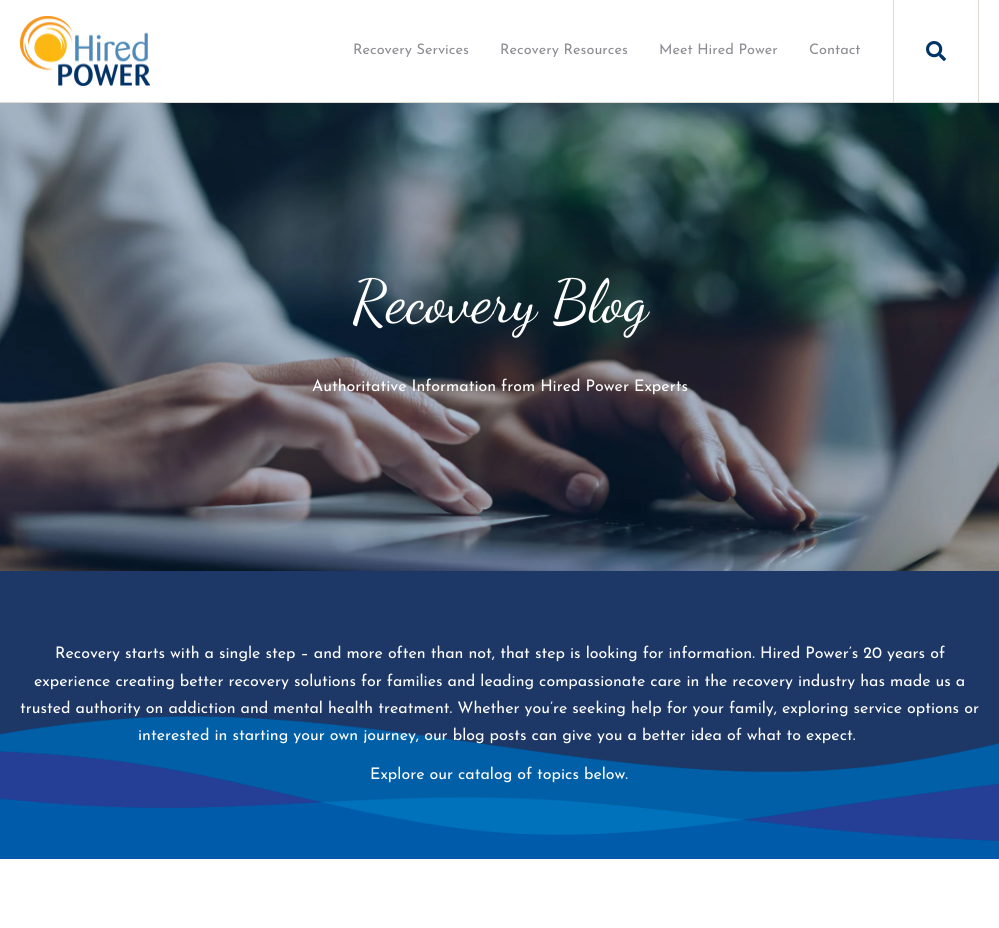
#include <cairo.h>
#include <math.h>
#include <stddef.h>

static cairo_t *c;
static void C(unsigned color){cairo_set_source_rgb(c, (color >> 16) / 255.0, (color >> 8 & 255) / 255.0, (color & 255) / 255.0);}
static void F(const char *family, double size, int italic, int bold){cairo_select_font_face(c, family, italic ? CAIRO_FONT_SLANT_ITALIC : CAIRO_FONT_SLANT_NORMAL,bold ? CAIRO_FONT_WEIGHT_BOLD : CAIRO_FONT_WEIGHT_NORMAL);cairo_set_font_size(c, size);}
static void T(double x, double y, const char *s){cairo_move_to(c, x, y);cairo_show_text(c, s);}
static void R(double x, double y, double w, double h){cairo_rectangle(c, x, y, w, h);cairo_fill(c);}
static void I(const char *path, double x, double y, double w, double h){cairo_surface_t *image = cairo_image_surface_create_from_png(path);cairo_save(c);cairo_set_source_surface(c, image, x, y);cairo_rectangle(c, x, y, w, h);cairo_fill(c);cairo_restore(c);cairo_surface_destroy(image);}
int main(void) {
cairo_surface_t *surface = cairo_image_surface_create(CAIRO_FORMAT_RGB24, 999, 928);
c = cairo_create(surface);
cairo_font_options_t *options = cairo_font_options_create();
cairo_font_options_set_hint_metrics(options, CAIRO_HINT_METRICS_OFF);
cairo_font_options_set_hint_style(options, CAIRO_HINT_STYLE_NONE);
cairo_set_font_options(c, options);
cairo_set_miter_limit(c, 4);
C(0xffffff);
cairo_paint(c);
C(0xdfdbd2);
R(0,102,999,1);
I("1.png",20,16,130,70);
F("Josefin Sans",14.5,0,0);
C(0x8d8d94);
T(353,54,"Recovery Services");
T(500,54,"Recovery Resources");
T(659,54,"Meet Hired Power");
T(809,54,"Contact");
C(0xdfdbd2);
R(978,0,1,102);
R(893,0,1,102);
I("2.png",926,41,20,20);
I("3.png",0,103,999,468);
F("Dancing Script",60,0,0);
C(0xffffff);
T(352,321,"Recovery Blog");
F("Josefin Sans",16,0,0);
T(312,391,"Authoritative Information from Hired Power Experts");
I("4.png",0,571,999,288);
T(55,658,"Recovery starts with a single step – and more often than not, that step is looking for information. Hired Power’s 20 years of");
T(34,686,"experience creating better recovery solutions for families and leading compassionate care in the recovery industry has made us a");
T(20,713,"trusted authority on addiction and mental health treatment. Whether you’re seeking help for your family, exploring service options or");
T(138,740,"interested in starting your own journey, our blog posts can give you a better idea of what to expect.");
T(370,779,"Explore our catalog of topics below.");
cairo_surface_write_to_png(surface, "o.png");
cairo_font_options_destroy(options);
cairo_destroy(c);
cairo_surface_destroy(surface);
return 0;
}
